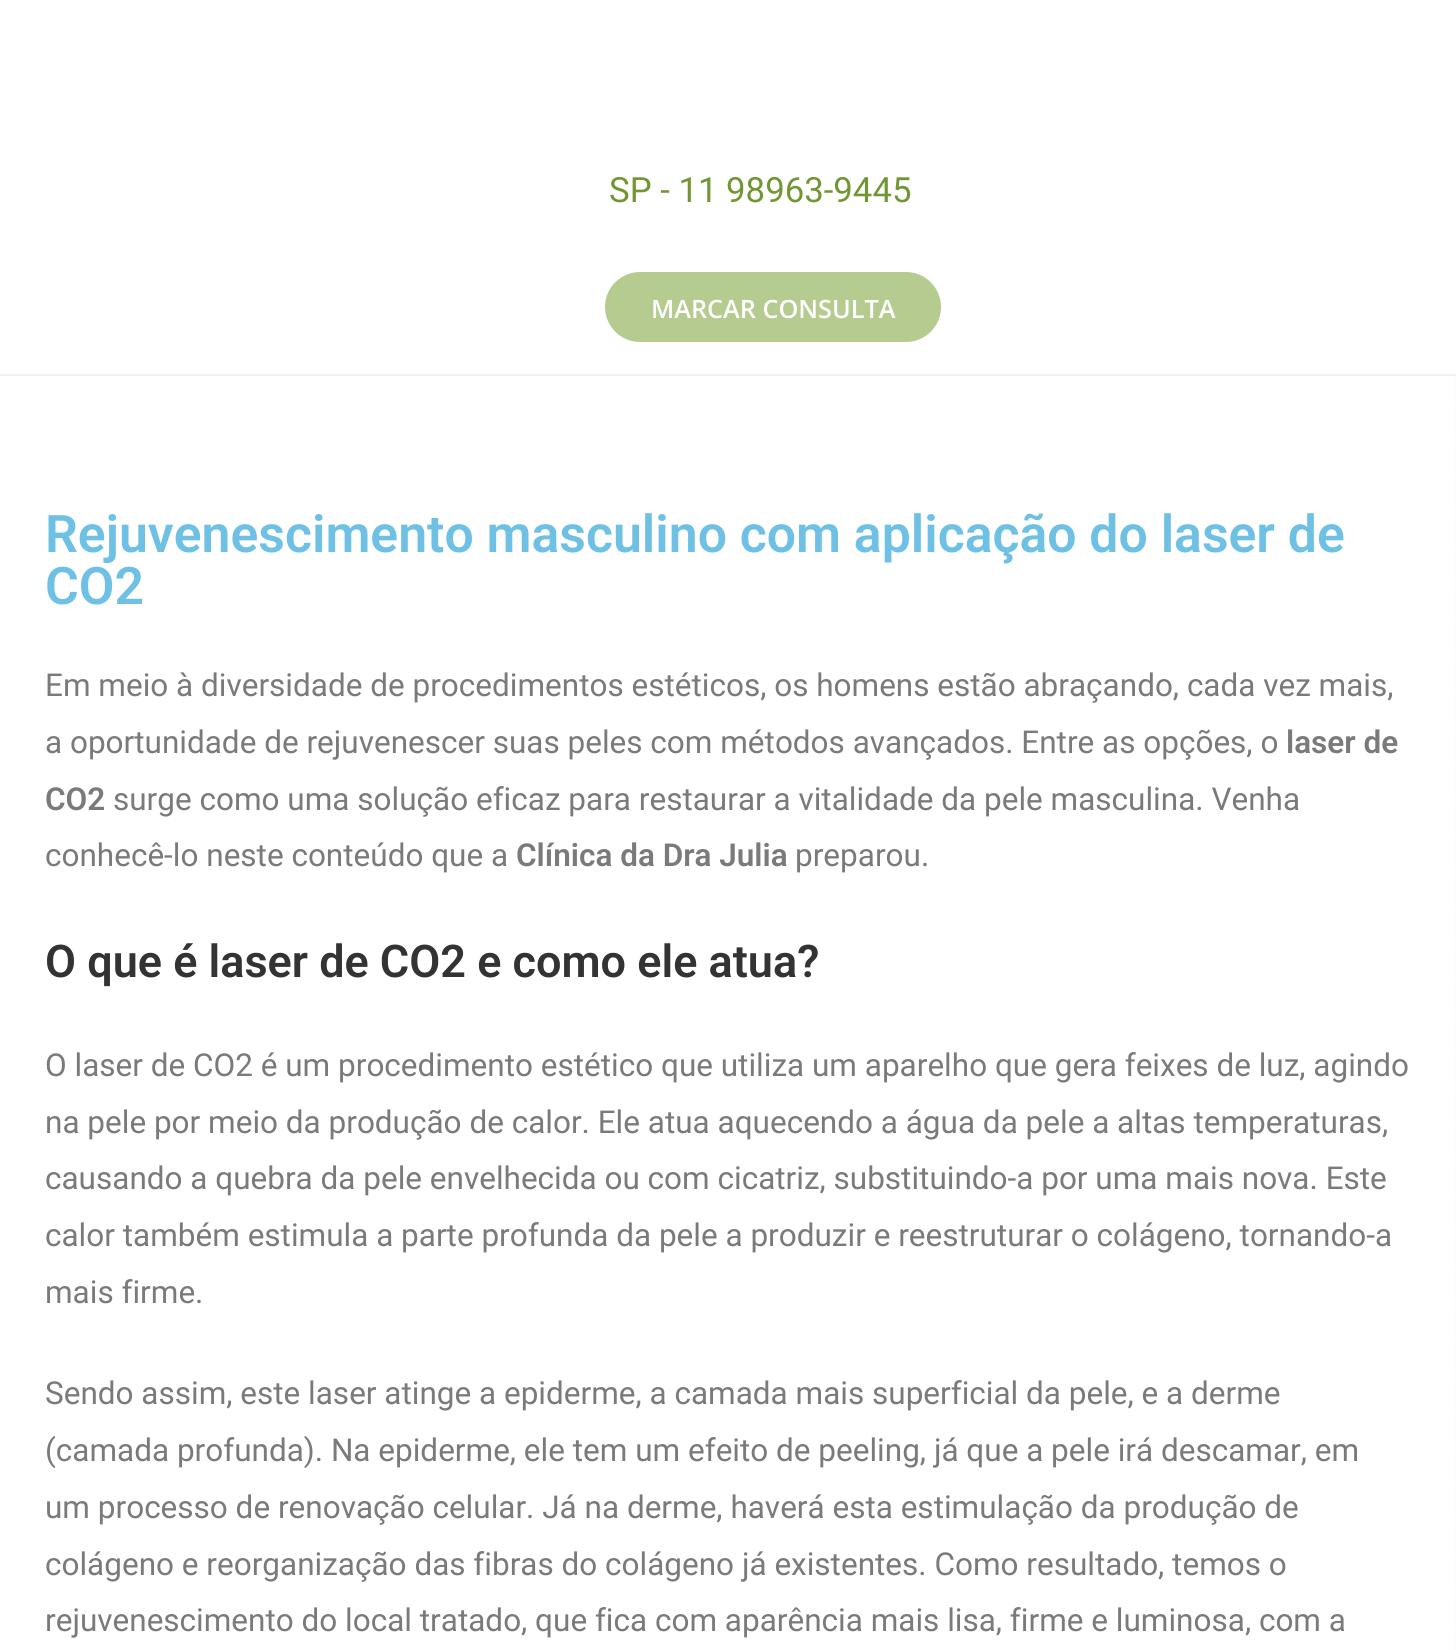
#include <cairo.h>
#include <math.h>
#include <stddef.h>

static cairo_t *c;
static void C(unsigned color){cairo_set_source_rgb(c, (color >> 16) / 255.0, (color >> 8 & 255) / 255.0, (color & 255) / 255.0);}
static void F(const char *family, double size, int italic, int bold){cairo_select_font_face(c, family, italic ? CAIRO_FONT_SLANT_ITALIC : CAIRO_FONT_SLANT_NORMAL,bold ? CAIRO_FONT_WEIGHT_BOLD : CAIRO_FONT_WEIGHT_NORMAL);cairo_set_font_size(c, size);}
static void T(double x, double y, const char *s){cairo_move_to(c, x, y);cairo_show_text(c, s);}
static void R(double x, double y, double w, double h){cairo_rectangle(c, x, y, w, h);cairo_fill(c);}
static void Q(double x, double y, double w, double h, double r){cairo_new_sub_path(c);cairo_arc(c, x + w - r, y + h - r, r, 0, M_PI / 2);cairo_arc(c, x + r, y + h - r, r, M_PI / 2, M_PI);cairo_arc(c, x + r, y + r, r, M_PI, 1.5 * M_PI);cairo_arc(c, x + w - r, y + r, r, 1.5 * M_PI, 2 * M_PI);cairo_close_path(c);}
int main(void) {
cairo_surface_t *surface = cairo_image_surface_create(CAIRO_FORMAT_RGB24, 1456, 1650);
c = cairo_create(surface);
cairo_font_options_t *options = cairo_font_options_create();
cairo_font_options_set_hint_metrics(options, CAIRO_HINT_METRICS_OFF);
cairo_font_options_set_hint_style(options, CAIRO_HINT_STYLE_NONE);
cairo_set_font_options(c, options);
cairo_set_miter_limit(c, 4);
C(0xffffff);
cairo_paint(c);
C(0xf1f1f1);
R(0,374,1456,2);
F("Roboto",34.75,0,0);
C(0x719633);
T(609,202,"SP - 11 98963-9445");
C(0xb5cb8f);
Q(605,272,336,70,35);
cairo_fill(c);
F("Open Sans SemiBold",25.25,0,0);
C(0xffffff);
T(651,318,"MARCAR CONSULTA");
cairo_new_path(c);
cairo_move_to(c,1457,376);
cairo_line_to(c,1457,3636);
C(0xb5cb8f);
cairo_set_line_width(c,2.2);
cairo_set_dash(c,(double[]){2.25,2.25},2,0);
cairo_stroke(c);
F("Roboto SemiBold",51.75,0,0);
C(0x6ec1e4);
T(45,552,"Rejuvenescimento masculino com aplicação do laser de");
T(45,604,"CO2");
F("Roboto",31.5,0,0);
C(0x7a7a7a);
T(45,696,"Em meio à diversidade de procedimentos estéticos, os homens estão abraçando, cada vez mais,");
T(45,753,"a oportunidade de rejuvenescer suas peles com métodos avançados. Entre as opções, o");
F("Roboto SemiBold",31.5,0,0);
T(1286,753,"laser de");
T(45,810,"CO2");
F("Roboto",31.5,0,0);
T(113,810,"surge como uma solução eficaz para restaurar a vitalidade da pele masculina. Venha");
T(45,866,"conhecê-lo neste conteúdo que a");
F("Roboto SemiBold",31.5,0,0);
T(516,866,"Clínica da Dra Julia");
F("Roboto",31.5,0,0);
T(795,866,"preparou.");
F("Roboto SemiBold",45,0,0);
C(0x333333);
T(45,977,"O que é laser de CO2 e como ele atua?");
F("Roboto",31.5,0,0);
C(0x7a7a7a);
T(45,1076,"O laser de CO2 é um procedimento estético que utiliza um aparelho que gera feixes de luz, agindo");
T(45,1133,"na pele por meio da produção de calor. Ele atua aquecendo a água da pele a altas temperaturas,");
T(45,1189,"causando a quebra da pele envelhecida ou com cicatriz, substituindo-a por uma mais nova. Este");
T(45,1246,"calor também estimula a parte profunda da pele a produzir e reestruturar o colágeno, tornando-a");
T(45,1303,"mais firme.");
T(45,1404,"Sendo assim, este laser atinge a epiderme, a camada mais superficial da pele, e a derme");
T(45,1461,"(camada profunda). Na epiderme, ele tem um efeito de peeling, já que a pele irá descamar, em");
T(45,1518,"um processo de renovação celular. Já na derme, haverá esta estimulação da produção de");
T(45,1575,"colágeno e reorganização das fibras do colágeno já existentes. Como resultado, temos o");
T(45,1631,"rejuvenescimento do local tratado, que fica com aparência mais lisa, firme e luminosa, com a");
cairo_surface_write_to_png(surface, "o.png");
cairo_font_options_destroy(options);
cairo_destroy(c);
cairo_surface_destroy(surface);
return 0;
}
